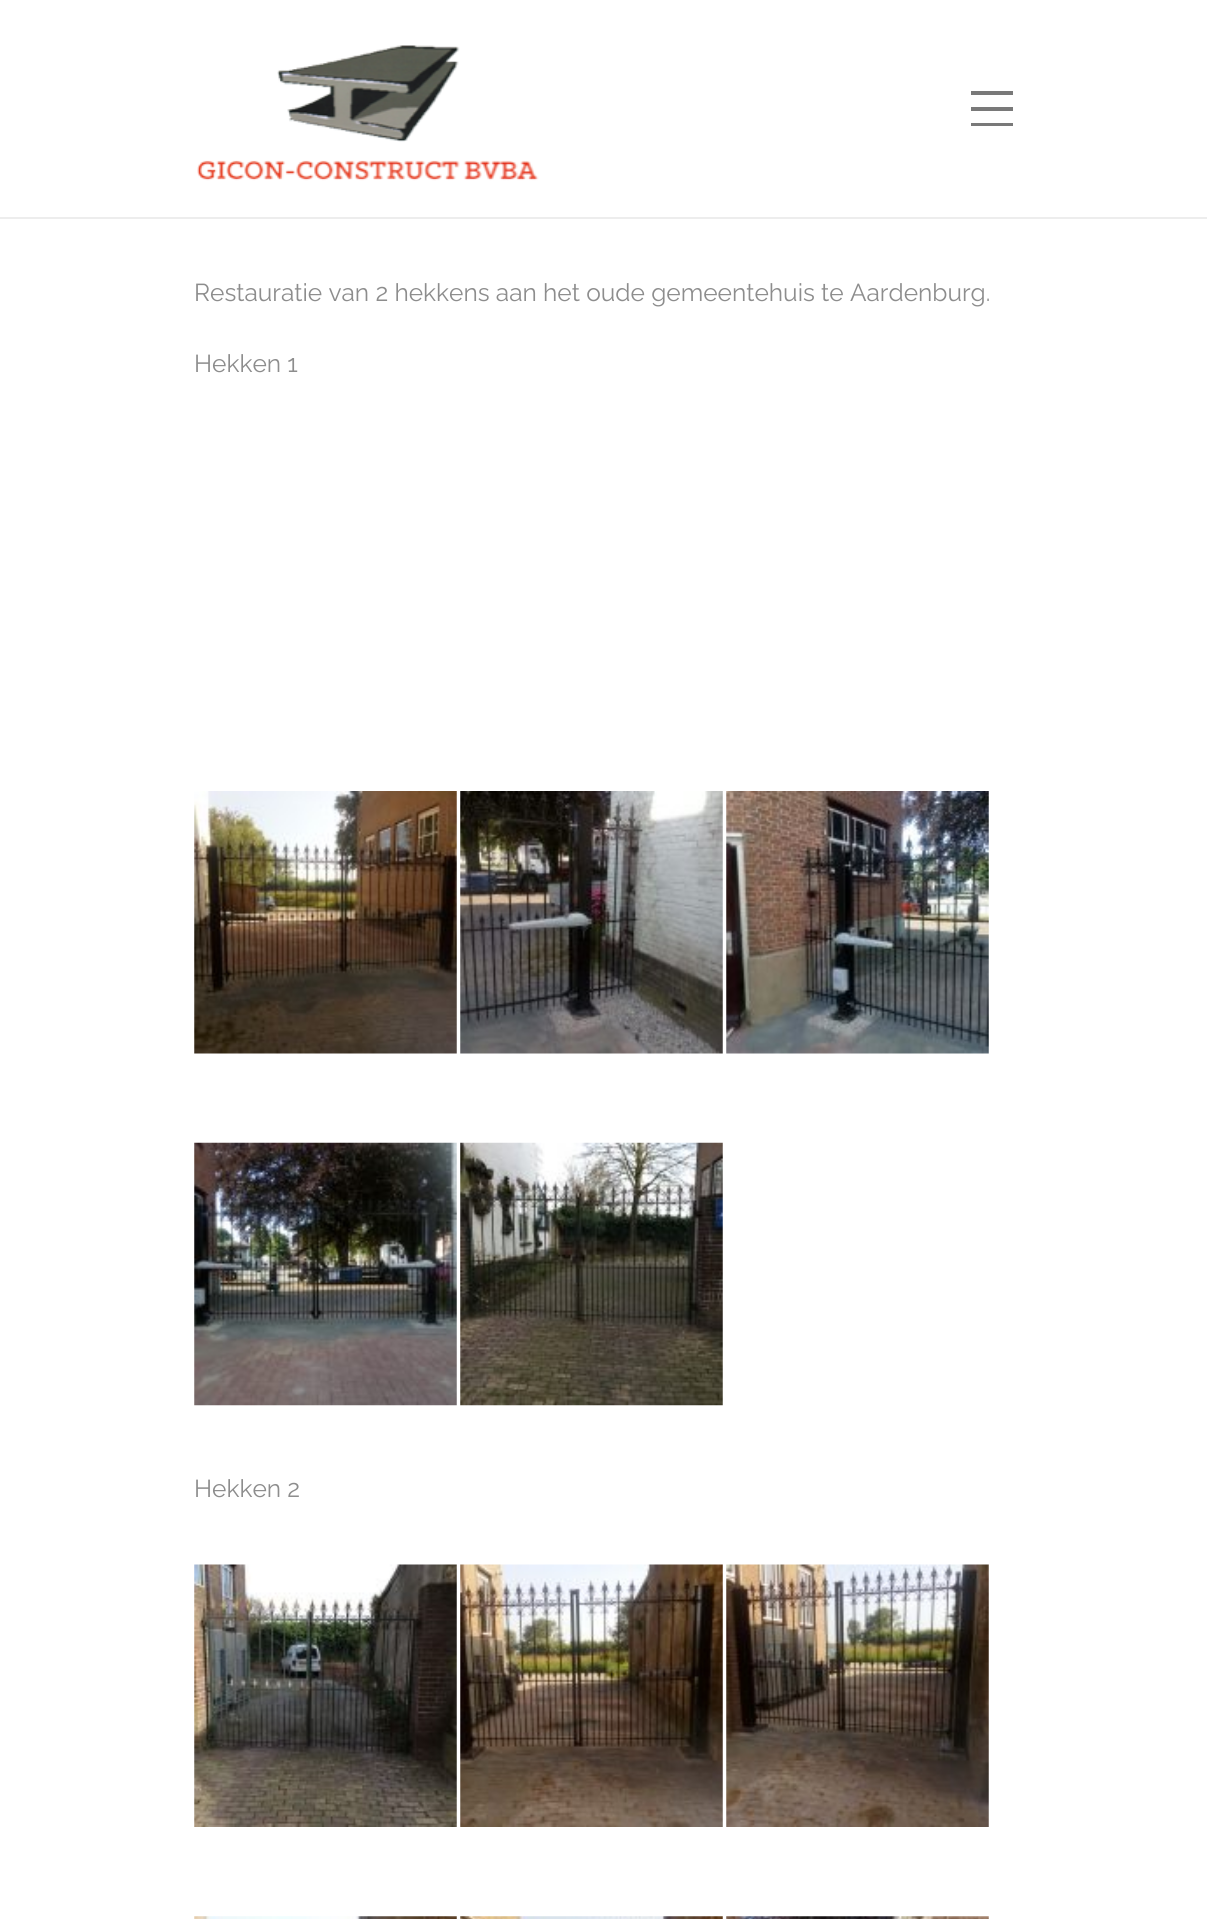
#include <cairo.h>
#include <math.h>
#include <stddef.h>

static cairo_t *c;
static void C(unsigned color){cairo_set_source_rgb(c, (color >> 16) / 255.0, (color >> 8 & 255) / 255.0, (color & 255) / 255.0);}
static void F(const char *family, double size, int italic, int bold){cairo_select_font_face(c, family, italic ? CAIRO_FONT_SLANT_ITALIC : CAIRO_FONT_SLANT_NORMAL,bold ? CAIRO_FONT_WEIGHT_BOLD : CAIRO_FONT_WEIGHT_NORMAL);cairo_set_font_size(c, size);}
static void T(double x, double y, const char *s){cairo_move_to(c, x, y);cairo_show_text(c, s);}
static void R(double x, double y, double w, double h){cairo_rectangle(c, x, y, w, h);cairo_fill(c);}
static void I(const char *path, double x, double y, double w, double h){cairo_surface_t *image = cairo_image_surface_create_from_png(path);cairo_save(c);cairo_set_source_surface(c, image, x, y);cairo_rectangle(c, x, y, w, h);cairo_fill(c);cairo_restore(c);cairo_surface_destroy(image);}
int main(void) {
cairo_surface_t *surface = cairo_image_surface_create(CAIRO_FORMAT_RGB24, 1207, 1919);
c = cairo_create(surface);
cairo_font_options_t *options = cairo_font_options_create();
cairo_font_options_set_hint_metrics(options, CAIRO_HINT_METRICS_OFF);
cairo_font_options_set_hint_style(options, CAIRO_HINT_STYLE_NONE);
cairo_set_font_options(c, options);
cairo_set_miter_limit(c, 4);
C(0xffffff);
cairo_paint(c);
C(0xededed);
R(0,217,1207,2);
I("1.png",197,45,342,136);
C(0x797979);
R(971,107,42,4);
R(971,91,42,4);
R(971,123,42,3);
F("Raleway",24.5,0,0);
C(0x8d8d8d);
T(194,301,"Restauratie van 2 hekkens aan het oude gemeentehuis te Aardenburg.");
T(194,372,"Hekken 1");
I("2.png",194,791,263,263);
I("3.png",460,791,263,263);
I("4.png",726,791,263,263);
I("5.png",194,1142,263,264);
I("6.png",460,1142,263,264);
T(194,1497,"Hekken 2");
I("7.png",194,1564,263,263);
I("8.png",460,1564,263,263);
I("9.png",726,1564,263,263);
I("10.png",194,1916,263,3);
I("11.png",460,1916,263,3);
I("12.png",726,1916,263,3);
cairo_surface_write_to_png(surface, "o.png");
cairo_font_options_destroy(options);
cairo_destroy(c);
cairo_surface_destroy(surface);
return 0;
}
